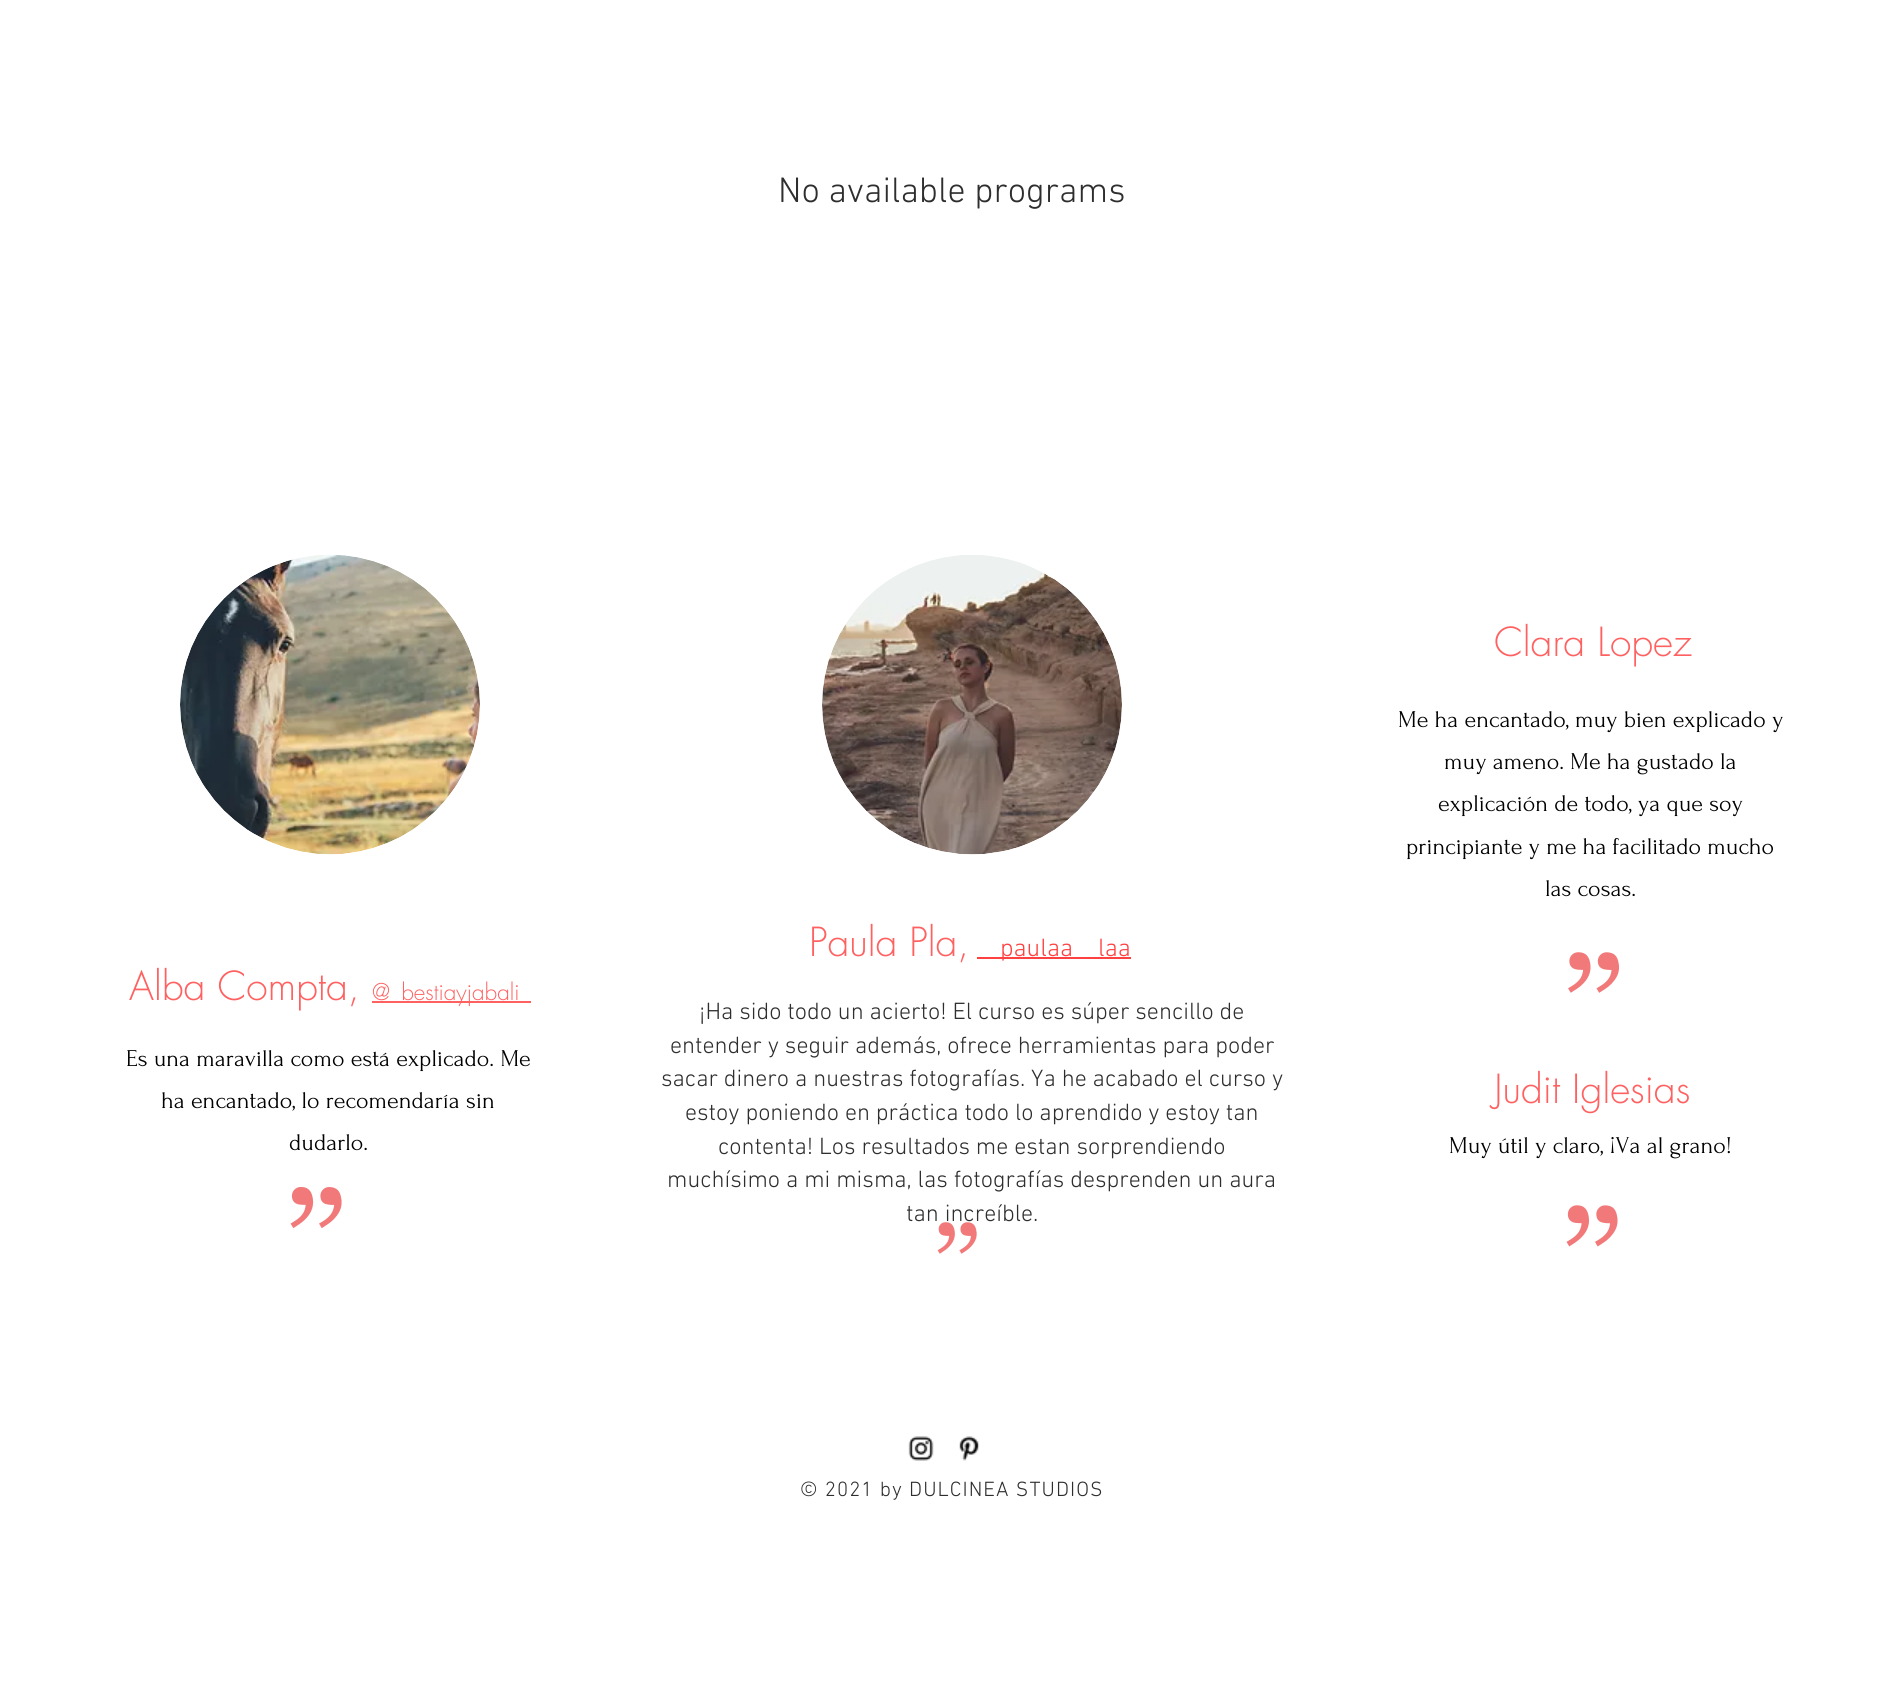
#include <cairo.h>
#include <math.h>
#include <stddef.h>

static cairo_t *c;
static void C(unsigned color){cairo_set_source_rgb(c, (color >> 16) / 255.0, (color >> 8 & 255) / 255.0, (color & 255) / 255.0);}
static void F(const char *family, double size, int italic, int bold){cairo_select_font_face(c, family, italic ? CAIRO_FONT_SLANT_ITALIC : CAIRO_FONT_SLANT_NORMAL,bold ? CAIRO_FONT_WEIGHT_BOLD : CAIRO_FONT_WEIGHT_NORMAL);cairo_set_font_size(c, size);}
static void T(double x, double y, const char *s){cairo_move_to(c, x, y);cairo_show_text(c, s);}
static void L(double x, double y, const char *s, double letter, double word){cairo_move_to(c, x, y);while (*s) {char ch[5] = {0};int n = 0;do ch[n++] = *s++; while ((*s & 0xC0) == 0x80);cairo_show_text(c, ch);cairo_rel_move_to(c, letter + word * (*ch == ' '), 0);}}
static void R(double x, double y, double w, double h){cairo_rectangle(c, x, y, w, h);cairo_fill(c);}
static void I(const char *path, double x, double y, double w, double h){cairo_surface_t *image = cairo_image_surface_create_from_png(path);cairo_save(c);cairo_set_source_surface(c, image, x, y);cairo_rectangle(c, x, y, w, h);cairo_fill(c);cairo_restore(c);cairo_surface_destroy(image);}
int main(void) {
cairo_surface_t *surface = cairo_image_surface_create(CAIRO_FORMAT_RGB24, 1903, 1695);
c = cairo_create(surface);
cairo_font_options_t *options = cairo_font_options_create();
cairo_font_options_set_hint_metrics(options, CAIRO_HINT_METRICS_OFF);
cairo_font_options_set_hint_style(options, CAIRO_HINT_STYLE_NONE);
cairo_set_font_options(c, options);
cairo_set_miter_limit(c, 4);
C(0xffffff);
cairo_paint(c);
F("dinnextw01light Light",36,0,0);
C(0x2e2e2e);
T(778,202,"No available programs");
I("1.png",180,555,300,300);
F("futura Light",39,0,0);
C(0xff6161);
T(129,1000,"Alba Compta,");
R(372,1001,159,2);
F("futura Light",22.5,0,0);
T(372,1000,"@_bestiayjabali");
F("Forum",24,0,0);
C(0x000000);
T(126,1066,"Es una maravilla como está explicado. Me");
T(161,1108,"ha encantado, lo recomendaría sin");
T(289,1150,"dudarlo.");
I("2.png",290,1187,52,41);
I("3.png",822,555,300,300);
F("futura Light",39,0,0);
C(0xff6161);
T(809,956,"Paula Pla,");
C(0xff4040);
R(977,957,154,2);
F("dinnextw01light Light",25.5,0,0);
T(1000,956,"paulaa");
T(1098,956,"laa");
F("dinnextw01light Light",24,0,0);
C(0x2e2e2e);
T(699,1019,"¡Ha sido todo un acierto! El curso es súper sencillo de");
T(670,1053,"entender y seguir además, ofrece herramientas para poder");
T(661,1086,"sacar dinero a nuestras fotografías. Ya he acabado el curso y");
T(685,1120,"estoy poniendo en práctica todo lo aprendido y estoy tan");
T(718,1154,"contenta! Los resultados me estan sorprendiendo");
T(667,1187,"muchísimo a mi misma, las fotografías desprenden un aura");
T(906,1221,"tan increíble.");
I("4.png",937,1222,40,32);
F("futura Light",39,0,0);
C(0xff6161);
T(1494,656,"Clara Lopez");
F("Forum",24,0,0);
C(0x000000);
T(1398,727,"Me ha encantado, muy bien explicado y");
T(1444,769,"muy ameno. Me ha gustado la");
T(1438,811,"explicación de todo, ya que soy");
T(1406,854,"principiante y me ha facilitado mucho");
T(1545,896,"las cosas.");
I("5.png",1568,952,51,41);
F("futura Light",39,0,0);
C(0xff6161);
T(1494,1103,"Judit Iglesias");
F("Forum",24,0,0);
C(0x000000);
T(1449,1153,"Muy útil y claro, ¡Va al grano!");
I("6.png",1566,1205,52,42);
I("7.png",908,1436,26,25);
I("8.png",959,1436,21,25);
F("dinnextw01light Light",21,0,0);
C(0x2e2e2e);
L(800,1496,"© 2021 by DULCINEA STUDIOS",1.05,0);
cairo_surface_write_to_png(surface, "o.png");
cairo_font_options_destroy(options);
cairo_destroy(c);
cairo_surface_destroy(surface);
return 0;
}
